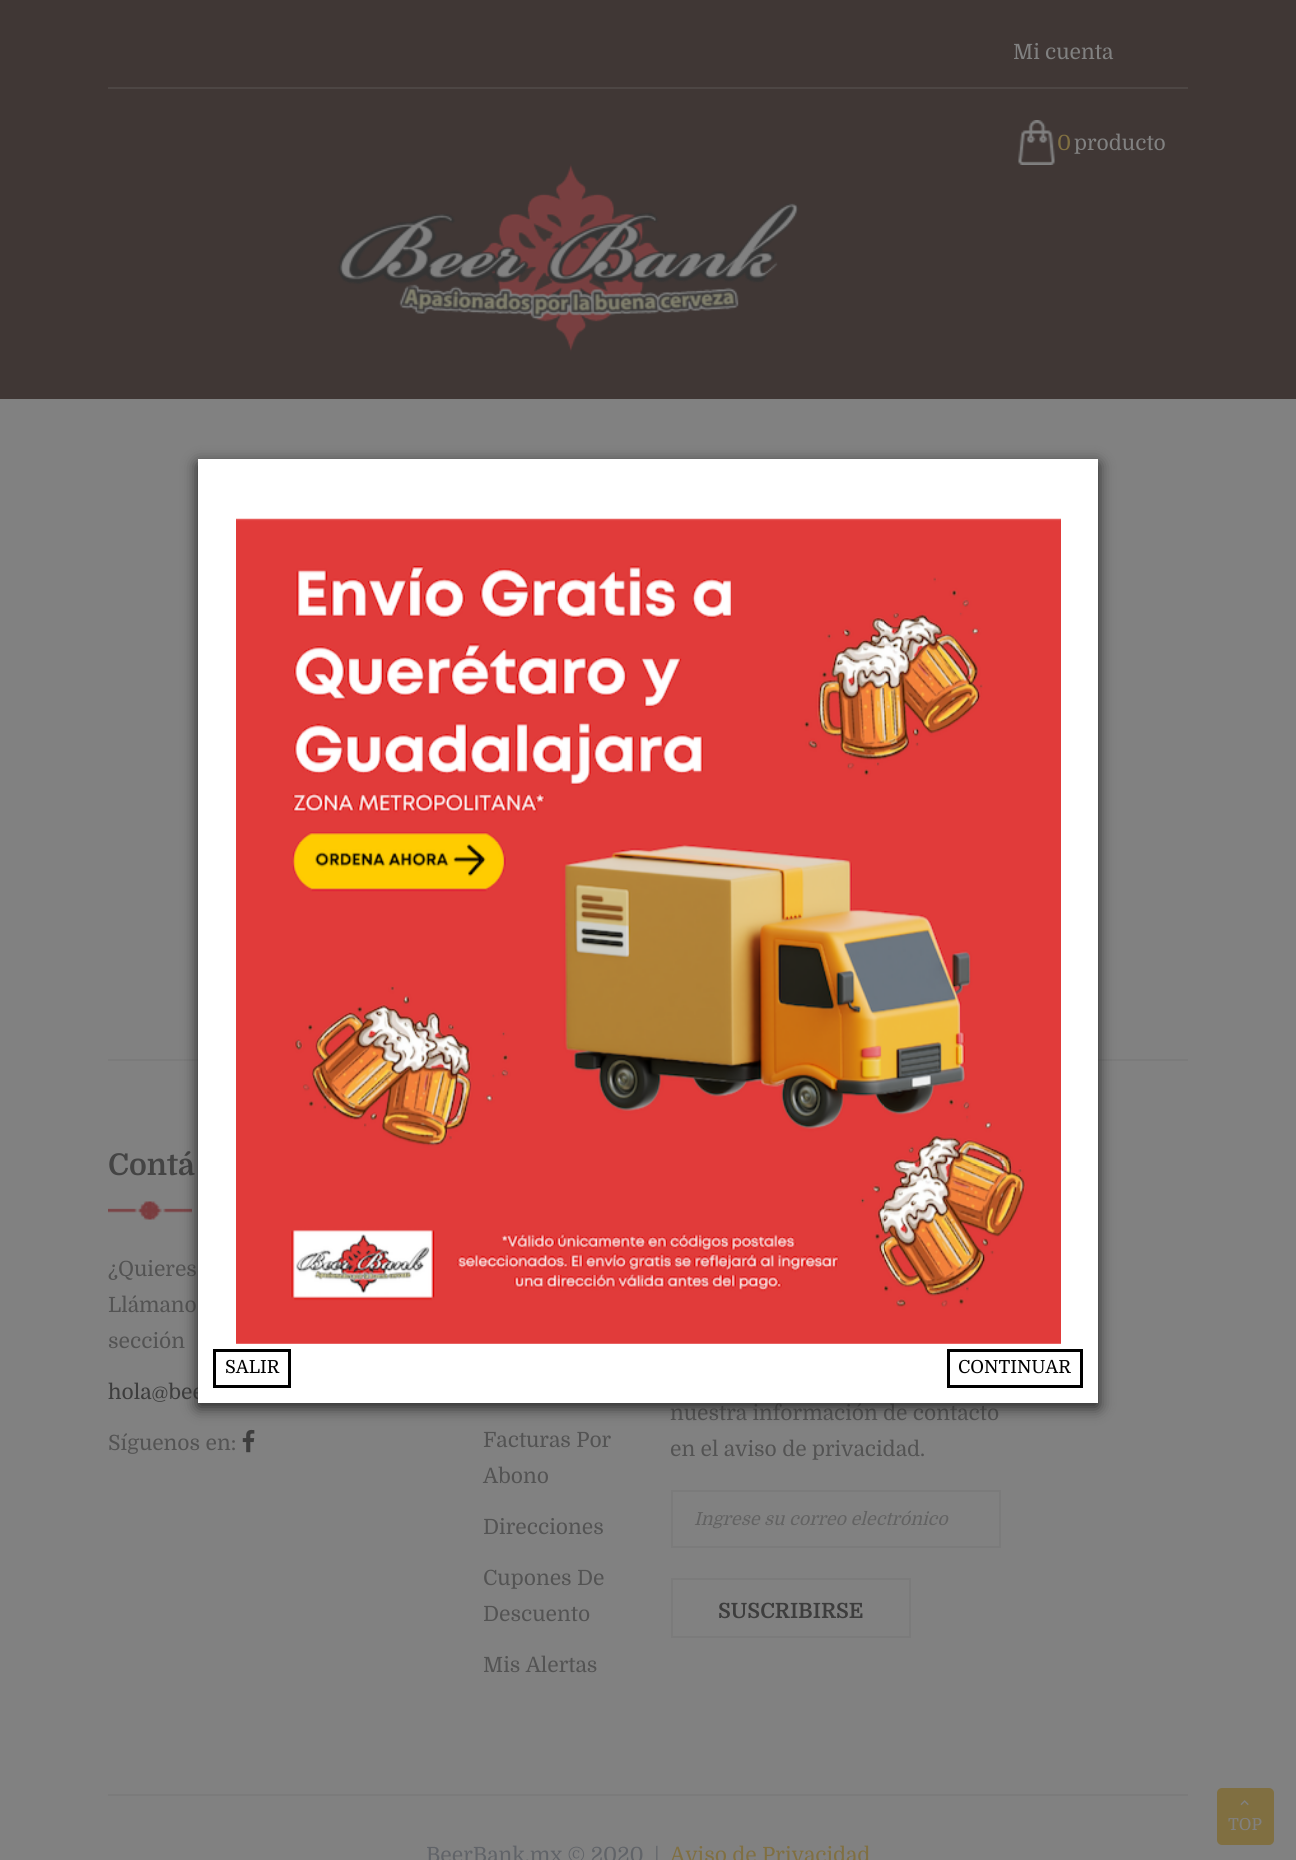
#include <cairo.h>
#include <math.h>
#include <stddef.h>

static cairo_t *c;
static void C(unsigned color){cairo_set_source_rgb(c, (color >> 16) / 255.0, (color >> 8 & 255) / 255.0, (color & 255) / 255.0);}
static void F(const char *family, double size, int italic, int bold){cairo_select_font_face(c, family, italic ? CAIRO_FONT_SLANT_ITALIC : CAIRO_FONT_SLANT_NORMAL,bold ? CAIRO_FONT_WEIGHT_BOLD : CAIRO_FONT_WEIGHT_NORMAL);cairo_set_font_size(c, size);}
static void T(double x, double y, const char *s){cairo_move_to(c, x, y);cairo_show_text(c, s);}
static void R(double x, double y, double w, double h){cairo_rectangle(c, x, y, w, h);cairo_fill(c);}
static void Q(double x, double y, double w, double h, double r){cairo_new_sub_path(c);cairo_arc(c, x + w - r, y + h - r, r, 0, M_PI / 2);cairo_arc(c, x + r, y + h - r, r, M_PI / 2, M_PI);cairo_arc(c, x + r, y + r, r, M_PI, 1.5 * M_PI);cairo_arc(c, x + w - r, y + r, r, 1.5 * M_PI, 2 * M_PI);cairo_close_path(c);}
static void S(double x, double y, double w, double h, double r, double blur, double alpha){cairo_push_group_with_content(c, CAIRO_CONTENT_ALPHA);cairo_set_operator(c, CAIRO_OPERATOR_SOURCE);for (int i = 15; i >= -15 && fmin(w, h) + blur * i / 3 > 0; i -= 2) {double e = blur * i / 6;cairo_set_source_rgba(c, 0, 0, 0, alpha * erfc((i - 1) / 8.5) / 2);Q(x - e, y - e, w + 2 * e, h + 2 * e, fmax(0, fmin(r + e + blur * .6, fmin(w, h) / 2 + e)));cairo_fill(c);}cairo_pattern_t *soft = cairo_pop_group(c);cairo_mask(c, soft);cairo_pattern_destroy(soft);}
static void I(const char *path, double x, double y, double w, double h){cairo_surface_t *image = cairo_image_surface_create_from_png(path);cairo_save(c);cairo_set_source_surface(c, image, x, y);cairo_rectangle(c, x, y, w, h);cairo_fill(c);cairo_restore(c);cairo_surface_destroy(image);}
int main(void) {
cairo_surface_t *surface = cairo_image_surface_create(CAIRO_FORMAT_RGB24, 1296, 1860);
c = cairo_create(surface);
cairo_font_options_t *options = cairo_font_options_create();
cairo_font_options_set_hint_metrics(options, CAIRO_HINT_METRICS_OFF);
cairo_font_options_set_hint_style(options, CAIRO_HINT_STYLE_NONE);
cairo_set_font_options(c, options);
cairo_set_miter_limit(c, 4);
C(0x818181);
cairo_paint(c);
C(0x403735);
R(0,0,1296,399);
C(0x4d4644);
R(108,87,1080,2);
F("Domine",21,0,0);
C(0x818181);
T(1013,59,"Mi cuenta");
I("1.png",1018,120,37,45);
C(0x806f41);
T(1057,150,"0");
C(0x818181);
T(1074,150,"producto");
I("2.png",337,164,462,188);
C(0x7b7b7b);
R(108,1059,1080,2);
F("Domine",30,0,1);
C(0x444444);
T(108,1175,"Contá");
I("3.png",108,1201,84,19);
F("Domine",21,0,0);
C(0x535353);
T(108,1276,"¿Quieres");
T(108,1312,"Llámano");
T(108,1348,"sección");
C(0x3d3d3d);
T(108,1399,"hola@bee");
C(0x535353);
T(108,1450,"Síguenos en:");
I("4.png",242,1429,13,24);
T(483,1447,"Facturas Por");
T(483,1483,"Abono");
T(483,1534,"Direcciones");
T(483,1585,"Cupones De");
T(483,1621,"Descuento");
T(483,1672,"Mis Alertas");
T(670,1420,"nuestra información de contacto");
T(670,1456,"en el aviso de privacidad.");
cairo_rectangle(c,672,1491,328,56);
C(0x7b7b7b);
cairo_stroke(c);
F("Domine",18,1,0);
C(0x626262);
T(694,1525,"Ingrese su correo electrónico");
cairo_rectangle(c,672,1579,238,58);
C(0x7b7b7b);
cairo_stroke(c);
F("Domine",21,0,1);
C(0x3d3d3d);
T(718,1618,"SUSCRIBIRSE");
C(0x7b7b7b);
R(108,1794,1080,2);
F("Domine",21,0,0);
C(0x606368);
T(426,1862,"BeerBank.mx © 2020  |");
C(0x806f41);
T(670,1862,"Aviso de Privacidad");
Q(1217,1788,57,57,5);
cairo_fill(c);
I("5.png",1240,1800,9,6);
F("Domine",16.5,0,0);
C(0x818181);
T(1228,1830,"TOP");
C(0x222222);
S(198,464,900,943,0,7.5,1);
C(0xffffff);
R(198,459,900,944);
I("6.png",236,518,825,826);
cairo_rectangle(c,214.5,1350.5,75,36);
C(0x000000);
cairo_set_line_width(c,3);
cairo_stroke(c);
F("Domine",18,0,0);
T(225,1373,"SALIR");
cairo_rectangle(c,948.5,1350.5,133,36);
cairo_stroke(c);
T(958,1373,"CONTINUAR");
cairo_surface_write_to_png(surface, "o.png");
cairo_font_options_destroy(options);
cairo_destroy(c);
cairo_surface_destroy(surface);
return 0;
}
